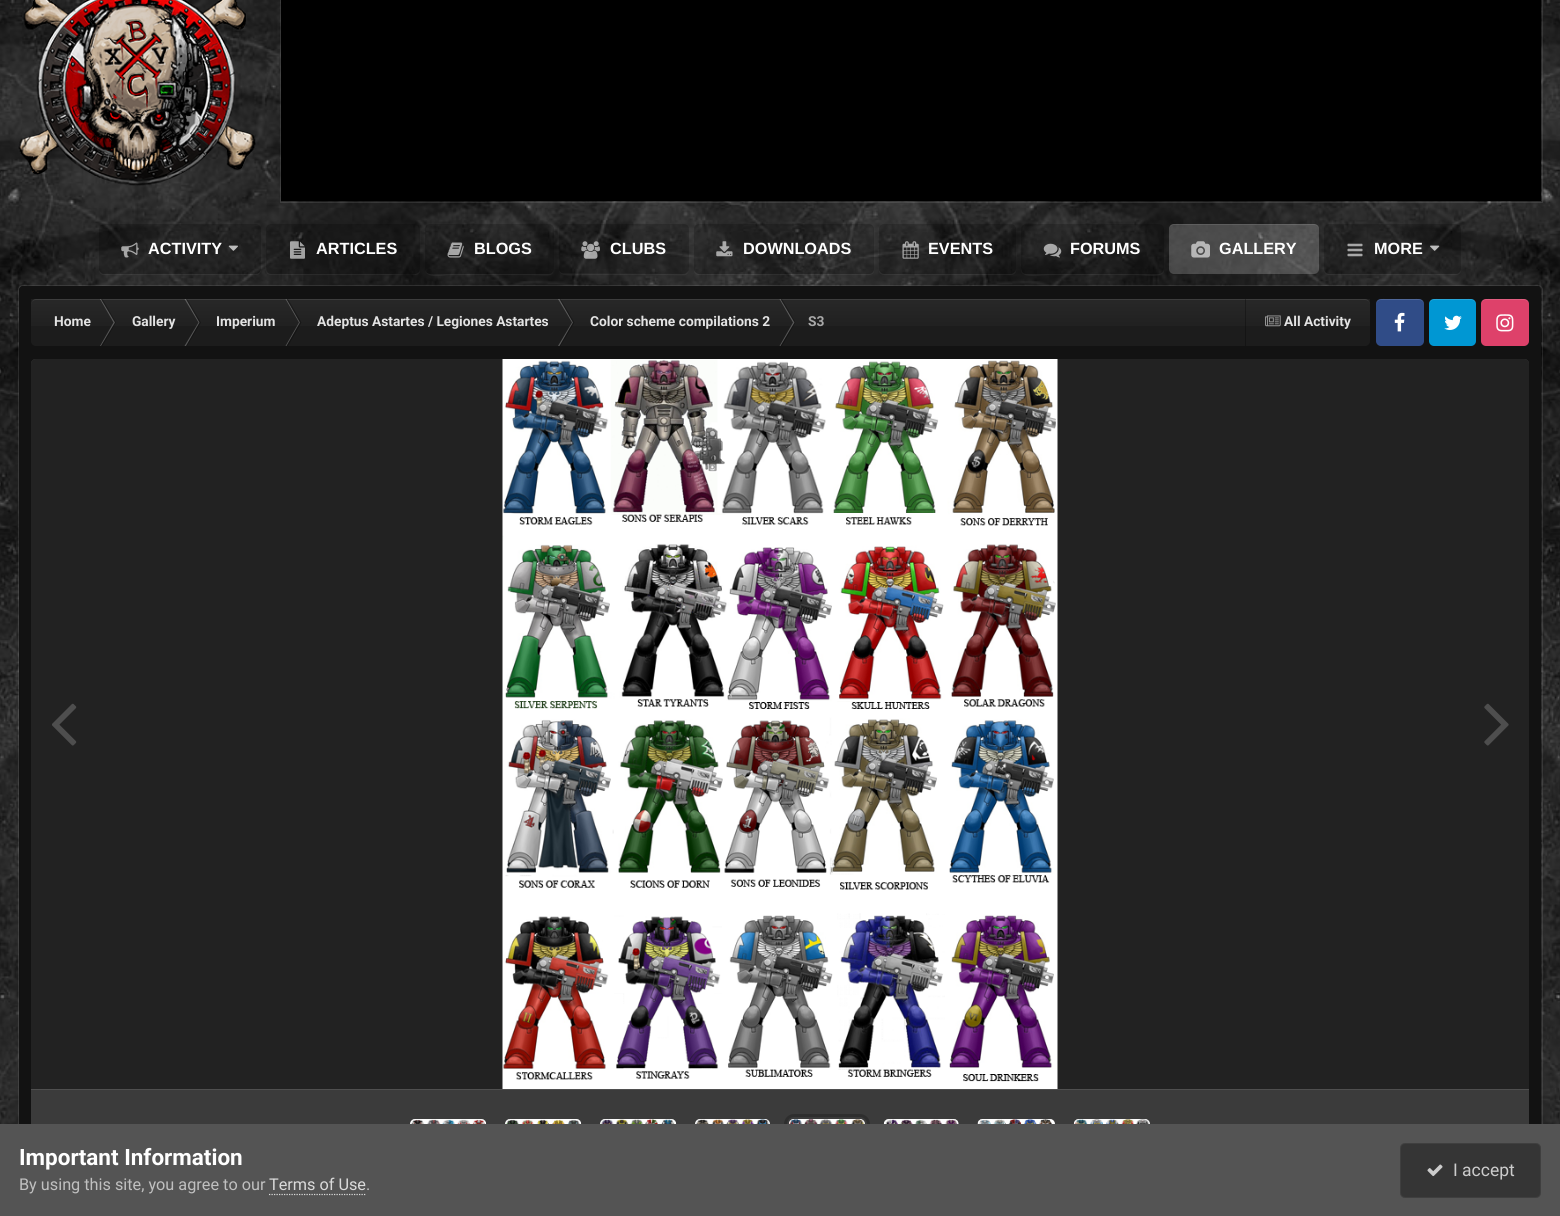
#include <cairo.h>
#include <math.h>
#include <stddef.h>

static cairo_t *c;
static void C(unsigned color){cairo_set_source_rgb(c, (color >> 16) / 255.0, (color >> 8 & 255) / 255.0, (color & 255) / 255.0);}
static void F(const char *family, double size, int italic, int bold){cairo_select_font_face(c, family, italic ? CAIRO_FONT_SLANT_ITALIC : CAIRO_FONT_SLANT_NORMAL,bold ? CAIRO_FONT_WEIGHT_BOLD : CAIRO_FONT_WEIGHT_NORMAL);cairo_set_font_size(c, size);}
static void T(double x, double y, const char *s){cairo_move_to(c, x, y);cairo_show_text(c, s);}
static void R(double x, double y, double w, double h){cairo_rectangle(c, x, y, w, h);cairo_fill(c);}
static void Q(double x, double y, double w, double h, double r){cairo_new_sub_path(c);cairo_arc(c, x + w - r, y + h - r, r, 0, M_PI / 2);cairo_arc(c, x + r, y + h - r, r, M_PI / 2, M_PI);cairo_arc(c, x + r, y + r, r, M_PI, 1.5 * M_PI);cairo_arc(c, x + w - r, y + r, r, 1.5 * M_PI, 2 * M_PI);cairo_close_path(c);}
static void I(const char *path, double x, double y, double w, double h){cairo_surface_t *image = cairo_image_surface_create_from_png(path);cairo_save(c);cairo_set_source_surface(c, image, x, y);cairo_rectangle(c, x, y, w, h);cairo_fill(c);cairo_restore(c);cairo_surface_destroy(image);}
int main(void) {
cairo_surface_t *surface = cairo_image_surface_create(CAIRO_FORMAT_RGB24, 1560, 1216);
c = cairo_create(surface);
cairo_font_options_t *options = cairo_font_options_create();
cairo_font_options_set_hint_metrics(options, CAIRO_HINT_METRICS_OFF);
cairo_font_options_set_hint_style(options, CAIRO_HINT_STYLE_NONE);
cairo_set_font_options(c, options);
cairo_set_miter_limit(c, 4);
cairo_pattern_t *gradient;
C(0xffffff);
cairo_paint(c);
I("1.png",0,0,1560,1124);
I("2.png",18,0,238,186);
cairo_rectangle(c,280.5,-.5,1262,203);
cairo_set_source_rgba(c,1,1,1,0.1);
cairo_set_line_width(c,1);
cairo_stroke(c);
C(0x000000);
R(281,0,1260,201);
cairo_set_source_rgba(c,1,1,1,0.05);
cairo_new_path(c);
cairo_move_to(c,99,270);
cairo_curve_to(c,99,273,101,275,104,275);
cairo_line_to(c,256,275);
cairo_curve_to(c,259,275,261,273,261,270);
cairo_curve_to(c,260,272,258,274,256,274);
cairo_line_to(c,104,274);
cairo_curve_to(c,102,274,100,272,99,270);
cairo_close_path(c);
cairo_fill(c);
cairo_set_source_rgba(c,0,0,0,0.2);
Q(99,224,162,50,5);
cairo_fill(c);
I("3.png",121,242,18,16);
F("Liberation Sans",16.25,0,1);
C(0xffffff);
T(148,254,"ACTIVITY");
I("4.png",228,245,10,6);
cairo_set_source_rgba(c,1,1,1,0.05);
cairo_new_path(c);
cairo_move_to(c,266,228);
cairo_line_to(c,266,270);
cairo_curve_to(c,266,273,268,275,271,275);
cairo_line_to(c,415,275);
cairo_curve_to(c,418,275,420,273,420,270);
cairo_line_to(c,420,269);
cairo_curve_to(c,420,278,401,274,391,274);
cairo_line_to(c,271,274);
cairo_curve_to(c,265,274,266,266,266,262);
cairo_close_path(c);
cairo_fill(c);
cairo_set_source_rgba(c,0,0,0,0.2);
Q(266,224,154,50,5);
cairo_fill(c);
I("5.png",290,241,15,18);
C(0xffffff);
T(316,254,"ARTICLES");
cairo_set_source_rgba(c,1,1,1,0.05);
cairo_new_path(c);
cairo_move_to(c,425,269);
cairo_curve_to(c,425,280,445,275,450,275);
cairo_line_to(c,529,275);
cairo_curve_to(c,555,275,554,280,554,257);
cairo_line_to(c,554,228);
cairo_line_to(c,554,262);
cairo_curve_to(c,554,266,555,274,549,274);
cairo_line_to(c,450,274);
cairo_curve_to(c,440,274,425,277,425,269);
cairo_close_path(c);
cairo_fill(c);
cairo_set_source_rgba(c,0,0,0,0.2);
Q(425,224,129,50,5);
cairo_fill(c);
I("6.png",447,242,17,16);
C(0xffffff);
T(474,254,"BLOGS");
cairo_set_source_rgba(c,1,1,1,0.05);
cairo_new_path(c);
cairo_move_to(c,559,270);
cairo_curve_to(c,560,278,575,275,584,275);
cairo_line_to(c,664,275);
cairo_curve_to(c,690,275,689,280,689,257);
cairo_line_to(c,689,228);
cairo_line_to(c,689,270);
cairo_line_to(c,687,272);
cairo_curve_to(c,686,273,685,274,684,274);
cairo_line_to(c,562,273);
cairo_curve_to(c,561,273,560,272,559,270);
cairo_close_path(c);
cairo_fill(c);
cairo_set_source_rgba(c,0,0,0,0.2);
Q(559,224,130,50,5);
cairo_fill(c);
I("7.png",581,241,19,18);
C(0xffffff);
T(610,254,"CLUBS");
cairo_set_source_rgba(c,1,1,1,0.05);
cairo_new_path(c);
cairo_move_to(c,694,270);
cairo_curve_to(c,694,273,696,275,699,275);
cairo_line_to(c,869,275);
cairo_curve_to(c,872,275,874,273,874,270);
cairo_line_to(c,874,228);
cairo_line_to(c,874,269);
cairo_curve_to(c,874,272,872,274,869,274);
cairo_line_to(c,699,274);
cairo_curve_to(c,697,274,695,272,694,270);
cairo_close_path(c);
cairo_fill(c);
cairo_set_source_rgba(c,0,0,0,0.2);
Q(694,224,180,50,5);
cairo_fill(c);
I("8.png",716,241,17,16);
C(0xffffff);
T(743,254,"DOWNLOADS");
cairo_set_source_rgba(c,1,1,1,0.05);
cairo_new_path(c);
cairo_move_to(c,879,270);
cairo_curve_to(c,879,273,881,275,884,275);
cairo_line_to(c,1011,275);
cairo_curve_to(c,1014,275,1016,273,1016,270);
cairo_curve_to(c,1015,272,1013,274,1011,274);
cairo_line_to(c,884,274);
cairo_curve_to(c,882,274,880,272,879,270);
cairo_close_path(c);
cairo_fill(c);
cairo_set_source_rgba(c,0,0,0,0.2);
Q(879,224,137,50,5);
cairo_fill(c);
I("9.png",902,241,17,18);
C(0xffffff);
T(928,254,"EVENTS");
cairo_set_source_rgba(c,1,1,1,0.05);
cairo_new_path(c);
cairo_move_to(c,1021,228);
cairo_line_to(c,1021,271);
cairo_curve_to(c,1023,279,1042,275,1048,275);
cairo_line_to(c,1137,275);
cairo_curve_to(c,1143,275,1162,279,1164,271);
cairo_line_to(c,1164,228);
cairo_line_to(c,1164,262);
cairo_curve_to(c,1164,266,1165,274,1159,274);
cairo_line_to(c,1026,274);
cairo_curve_to(c,1020,274,1021,266,1021,262);
cairo_close_path(c);
cairo_fill(c);
cairo_set_source_rgba(c,0,0,0,0.2);
Q(1021,224,143,50,5);
cairo_fill(c);
I("10.png",1043,243,19,15);
C(0xffffff);
T(1070,254,"FORUMS");
cairo_set_source_rgba(c,1,1,1,0.2);
Q(1169,224,150,50,5);
cairo_fill(c);
cairo_set_source_rgba(c,1,1,1,0.1);
cairo_new_path(c);
cairo_move_to(c,1174,225);
cairo_line_to(c,1314,225);
cairo_curve_to(c,1317,225,1319,227,1319,230);
cairo_line_to(c,1319,229);
cairo_curve_to(c,1319,226,1317,224,1314,224);
cairo_line_to(c,1174,224);
cairo_curve_to(c,1171,224,1169,226,1169,229);
cairo_line_to(c,1169,230);
cairo_curve_to(c,1169,227,1171,225,1174,225);
cairo_close_path(c);
cairo_fill(c);
I("11.png",1191,241,19,17);
C(0xffffff);
T(1219,254,"GALLERY");
cairo_set_source_rgba(c,1,1,1,0.05);
cairo_new_path(c);
cairo_move_to(c,1324,270);
cairo_curve_to(c,1324,273,1326,275,1329,275);
cairo_line_to(c,1456,275);
cairo_curve_to(c,1459,275,1461,273,1461,270);
cairo_curve_to(c,1460,272,1458,274,1456,274);
cairo_line_to(c,1329,274);
cairo_curve_to(c,1327,274,1325,272,1324,270);
cairo_close_path(c);
cairo_fill(c);
cairo_set_source_rgba(c,0,0,0,0.2);
Q(1324,224,137,50,5);
cairo_fill(c);
I("12.png",1347,243,16,14);
C(0xffffff);
T(1374,254,"MORE");
I("13.png",1430,245,10,6);
Q(18.5,285.5,1524,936,4.5);
cairo_set_source_rgba(c,1,1,1,0.1);
cairo_stroke(c);
C(0x121212);
Q(19,286,1522,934,4);
cairo_fill(c);
C(0x1c1c1c);
Q(31,299,1339,47,5);
cairo_fill(c);
gradient = cairo_pattern_create_linear(701,299,701,346);
cairo_pattern_add_color_stop_rgba(gradient,0,1,1,1,.05);
cairo_pattern_add_color_stop_rgba(gradient,1,1,1,1,0);
cairo_set_source(c,gradient);
cairo_pattern_destroy(gradient);
R(31,299,1339,27);
cairo_set_source_rgba(c,1,1,1,0.1);
cairo_new_path(c);
cairo_move_to(c,36,300);
cairo_line_to(c,1365,300);
cairo_curve_to(c,1368,300,1370,302,1370,305);
cairo_curve_to(c,1370,302,1368,299,1365,299);
cairo_line_to(c,36,299);
cairo_curve_to(c,33,299,31,302,31,305);
cairo_curve_to(c,31,302,33,300,36,300);
cairo_close_path(c);
cairo_fill(c);
F("Roboto",13.75,0,1);
C(0xe3e3e3);
T(54,326,"Home");
cairo_set_source_rgba(c,1,1,1,0.25);
cairo_new_path(c);
cairo_move_to(c,100,299);
cairo_line_to(c,101,299);
cairo_line_to(c,115,322.5);
cairo_line_to(c,113.5,322.5);
cairo_close_path(c);
cairo_fill(c);
cairo_set_source_rgba(c,0,0,0,0.3);
cairo_new_path(c);
cairo_move_to(c,101,299);
cairo_line_to(c,102.5,299);
cairo_line_to(c,116,322.5);
cairo_line_to(c,115,322.5);
cairo_close_path(c);
cairo_fill(c);
cairo_set_source_rgba(c,1,1,1,0.25);
cairo_new_path(c);
cairo_move_to(c,100,346);
cairo_line_to(c,101,346);
cairo_line_to(c,115,322.5);
cairo_line_to(c,113.5,322.5);
cairo_close_path(c);
cairo_fill(c);
cairo_set_source_rgba(c,0,0,0,0.3);
cairo_new_path(c);
cairo_move_to(c,101,346);
cairo_line_to(c,102.5,346);
cairo_line_to(c,116,322.5);
cairo_line_to(c,115,322.5);
cairo_close_path(c);
cairo_fill(c);
C(0xe3e3e3);
T(132,326,"Gallery");
cairo_set_source_rgba(c,1,1,1,0.25);
cairo_new_path(c);
cairo_move_to(c,184.5,299);
cairo_line_to(c,186,299);
cairo_line_to(c,199.5,322.5);
cairo_line_to(c,198.5,322.5);
cairo_close_path(c);
cairo_fill(c);
cairo_set_source_rgba(c,0,0,0,0.3);
cairo_new_path(c);
cairo_move_to(c,186,299);
cairo_line_to(c,187,299);
cairo_line_to(c,201,322.5);
cairo_line_to(c,199.5,322.5);
cairo_close_path(c);
cairo_fill(c);
cairo_set_source_rgba(c,1,1,1,0.25);
cairo_new_path(c);
cairo_move_to(c,184.5,346);
cairo_line_to(c,186,346);
cairo_line_to(c,199.5,322.5);
cairo_line_to(c,198.5,322.5);
cairo_close_path(c);
cairo_fill(c);
cairo_set_source_rgba(c,0,0,0,0.3);
cairo_new_path(c);
cairo_move_to(c,186,346);
cairo_line_to(c,187,346);
cairo_line_to(c,201,322.5);
cairo_line_to(c,199.5,322.5);
cairo_close_path(c);
cairo_fill(c);
C(0xe3e3e3);
T(216,326,"Imperium");
cairo_set_source_rgba(c,1,1,1,0.25);
cairo_new_path(c);
cairo_move_to(c,285.5,299);
cairo_line_to(c,286.5,299);
cairo_line_to(c,300,322.5);
cairo_line_to(c,299,322.5);
cairo_close_path(c);
cairo_fill(c);
cairo_set_source_rgba(c,0,0,0,0.3);
cairo_new_path(c);
cairo_move_to(c,286.5,299);
cairo_line_to(c,288,299);
cairo_line_to(c,301.5,322.5);
cairo_line_to(c,300,322.5);
cairo_close_path(c);
cairo_fill(c);
cairo_set_source_rgba(c,1,1,1,0.25);
cairo_new_path(c);
cairo_move_to(c,285.5,346);
cairo_line_to(c,286.5,346);
cairo_line_to(c,300,322.5);
cairo_line_to(c,299,322.5);
cairo_close_path(c);
cairo_fill(c);
cairo_set_source_rgba(c,0,0,0,0.3);
cairo_new_path(c);
cairo_move_to(c,286.5,346);
cairo_line_to(c,288,346);
cairo_line_to(c,301.5,322.5);
cairo_line_to(c,300,322.5);
cairo_close_path(c);
cairo_fill(c);
C(0xe3e3e3);
T(317,326,"Adeptus Astartes / Legiones Astartes");
cairo_set_source_rgba(c,1,1,1,0.25);
cairo_new_path(c);
cairo_move_to(c,558,299);
cairo_line_to(c,559.5,299);
cairo_line_to(c,573,322.5);
cairo_line_to(c,572,322.5);
cairo_close_path(c);
cairo_fill(c);
cairo_set_source_rgba(c,0,0,0,0.3);
cairo_new_path(c);
cairo_move_to(c,559.5,299);
cairo_line_to(c,560.5,299);
cairo_line_to(c,574.5,322.5);
cairo_line_to(c,573,322.5);
cairo_close_path(c);
cairo_fill(c);
cairo_set_source_rgba(c,1,1,1,0.25);
cairo_new_path(c);
cairo_move_to(c,558,346);
cairo_line_to(c,559.5,346);
cairo_line_to(c,573,322.5);
cairo_line_to(c,572,322.5);
cairo_close_path(c);
cairo_fill(c);
cairo_set_source_rgba(c,0,0,0,0.3);
cairo_new_path(c);
cairo_move_to(c,559.5,346);
cairo_line_to(c,560.5,346);
cairo_line_to(c,574.5,322.5);
cairo_line_to(c,573,322.5);
cairo_close_path(c);
cairo_fill(c);
C(0xe3e3e3);
T(590,326,"Color scheme compilations 2");
cairo_set_source_rgba(c,1,1,1,0.25);
cairo_new_path(c);
cairo_move_to(c,779.5,299);
cairo_line_to(c,780.5,299);
cairo_line_to(c,794.5,322.5);
cairo_line_to(c,793,322.5);
cairo_close_path(c);
cairo_fill(c);
cairo_set_source_rgba(c,0,0,0,0.3);
cairo_new_path(c);
cairo_move_to(c,780.5,299);
cairo_line_to(c,782,299);
cairo_line_to(c,795.5,322.5);
cairo_line_to(c,794.5,322.5);
cairo_close_path(c);
cairo_fill(c);
cairo_set_source_rgba(c,1,1,1,0.25);
cairo_new_path(c);
cairo_move_to(c,779.5,346);
cairo_line_to(c,780.5,346);
cairo_line_to(c,794.5,322.5);
cairo_line_to(c,793,322.5);
cairo_close_path(c);
cairo_fill(c);
cairo_set_source_rgba(c,0,0,0,0.3);
cairo_new_path(c);
cairo_move_to(c,780.5,346);
cairo_line_to(c,782,346);
cairo_line_to(c,795.5,322.5);
cairo_line_to(c,794.5,322.5);
cairo_close_path(c);
cairo_fill(c);
C(0xa9a9a9);
T(808,326,"S3");
cairo_set_source_rgba(c,0,0,0,0.3);
R(1245,299,1,47);
I("14.png",1265,315,16,12);
C(0xe3e3e3);
T(1284,326,"All Activity");
C(0x304c87);
Q(1376,299,48,47,5);
cairo_fill(c);
cairo_set_source_rgba(c,1,1,1,0.15);
cairo_new_path(c);
cairo_move_to(c,1381,300);
cairo_curve_to(c,1378,300,1376,302,1376,305);
cairo_curve_to(c,1376,298,1382,299,1387,299);
cairo_line_to(c,1413,299);
cairo_curve_to(c,1418,299,1424,298,1424,305);
cairo_curve_to(c,1424,302,1422,300,1419,300);
cairo_close_path(c);
cairo_fill(c);
I("15.png",1394,312,11,20);
C(0x0097d3);
Q(1429,299,47,47,5);
cairo_fill(c);
cairo_set_source_rgba(c,1,1,1,0.15);
cairo_new_path(c);
cairo_move_to(c,1434,300);
cairo_curve_to(c,1431,300,1429,302,1429,305);
cairo_curve_to(c,1429,298,1435,299,1440,299);
cairo_line_to(c,1465,299);
cairo_curve_to(c,1470,299,1476,298,1476,305);
cairo_curve_to(c,1476,302,1474,300,1471,300);
cairo_close_path(c);
cairo_fill(c);
I("16.png",1444,315,18,15);
C(0xde416a);
Q(1481,299,48,47,5);
cairo_fill(c);
cairo_set_source_rgba(c,1,1,1,0.15);
cairo_new_path(c);
cairo_move_to(c,1486,300);
cairo_curve_to(c,1483,300,1481,302,1481,305);
cairo_curve_to(c,1481,298,1487,299,1492,299);
cairo_line_to(c,1518,299);
cairo_curve_to(c,1523,299,1529,298,1529,305);
cairo_curve_to(c,1529,302,1527,300,1524,300);
cairo_close_path(c);
cairo_fill(c);
I("17.png",1496,314,18,18);
C(0x545454);
cairo_new_path(c);
cairo_move_to(c,36,359);
cairo_line_to(c,1524,359);
cairo_curve_to(c,1527,359,1529,361,1529,364);
cairo_line_to(c,1529,1089);
cairo_line_to(c,31,1089);
cairo_line_to(c,31,364);
cairo_curve_to(c,31,361,33,359,36,359);
cairo_close_path(c);
cairo_fill(c);
cairo_set_source_rgba(c,0,0,0,0.6);
cairo_new_path(c);
cairo_move_to(c,36,359);
cairo_line_to(c,1524,359);
cairo_curve_to(c,1527,359,1529,361,1529,364);
cairo_line_to(c,1529,1089);
cairo_line_to(c,31,1089);
cairo_line_to(c,31,364);
cairo_curve_to(c,31,361,33,359,36,359);
cairo_close_path(c);
cairo_fill(c);
I("18.png",502,359,556,730);
I("19.png",52,703,25,43);
I("20.png",1484,703,25,43);
C(0x3b3b3b);
R(31,1090,1498,34);
C(0x4f4f4f);
R(31,1089,1498,1);
I("21.png",410,1119,77,5);
I("22.png",505,1119,77,5);
I("23.png",600,1119,77,5);
I("24.png",695,1119,75,5);
Q(785.5,1115.5,83,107,8.5);
C(0x2e2e2e);
cairo_set_line_width(c,3);
cairo_stroke(c);
I("25.png",788,1119,77,5);
C(0x141414);
Q(884,1119,75,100,5);
cairo_fill(c);
cairo_set_source_rgba(c,0.329,0.329,0.329,0.3);
Q(884,1119,75,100,5);
cairo_fill(c);
I("26.png",883,1119,76,5);
I("27.png",977,1119,78,5);
I("28.png",1073,1119,77,5);
C(0x545454);
R(0,1124,1560,92);
F("Roboto",22.5,0,1);
C(0xffffff);
T(19,1165,"Important Information");
F("Roboto",16.25,0,0);
C(0xc0c0c0);
T(19,1190,"By using this site, you agree to our");
C(0xdadada);
T(269,1190,"Terms of Use");
cairo_new_path(c);
cairo_move_to(c,269,1194.5);
cairo_line_to(c,366,1194.5);
cairo_set_line_width(c,1.2);
cairo_set_dash(c,(double[]){1.25,1.25},2,0);
cairo_stroke(c);
C(0xc0c0c0);
T(366,1190,".");
C(0x353535);
Q(1400,1143,141,55,5);
cairo_fill(c);
Q(1400.5,1143.5,140,54,4.5);
cairo_set_source_rgba(c,0.8,0.8,0.8,0.07);
cairo_set_line_width(c,1);
cairo_set_dash(c,NULL,0,0);
cairo_stroke(c);
I("29.png",1427,1164,16,13);
F("Roboto",17.5,0,0);
C(0xcccccc);
T(1453,1176,"I accept");
cairo_surface_write_to_png(surface, "o.png");
cairo_font_options_destroy(options);
cairo_destroy(c);
cairo_surface_destroy(surface);
return 0;
}
